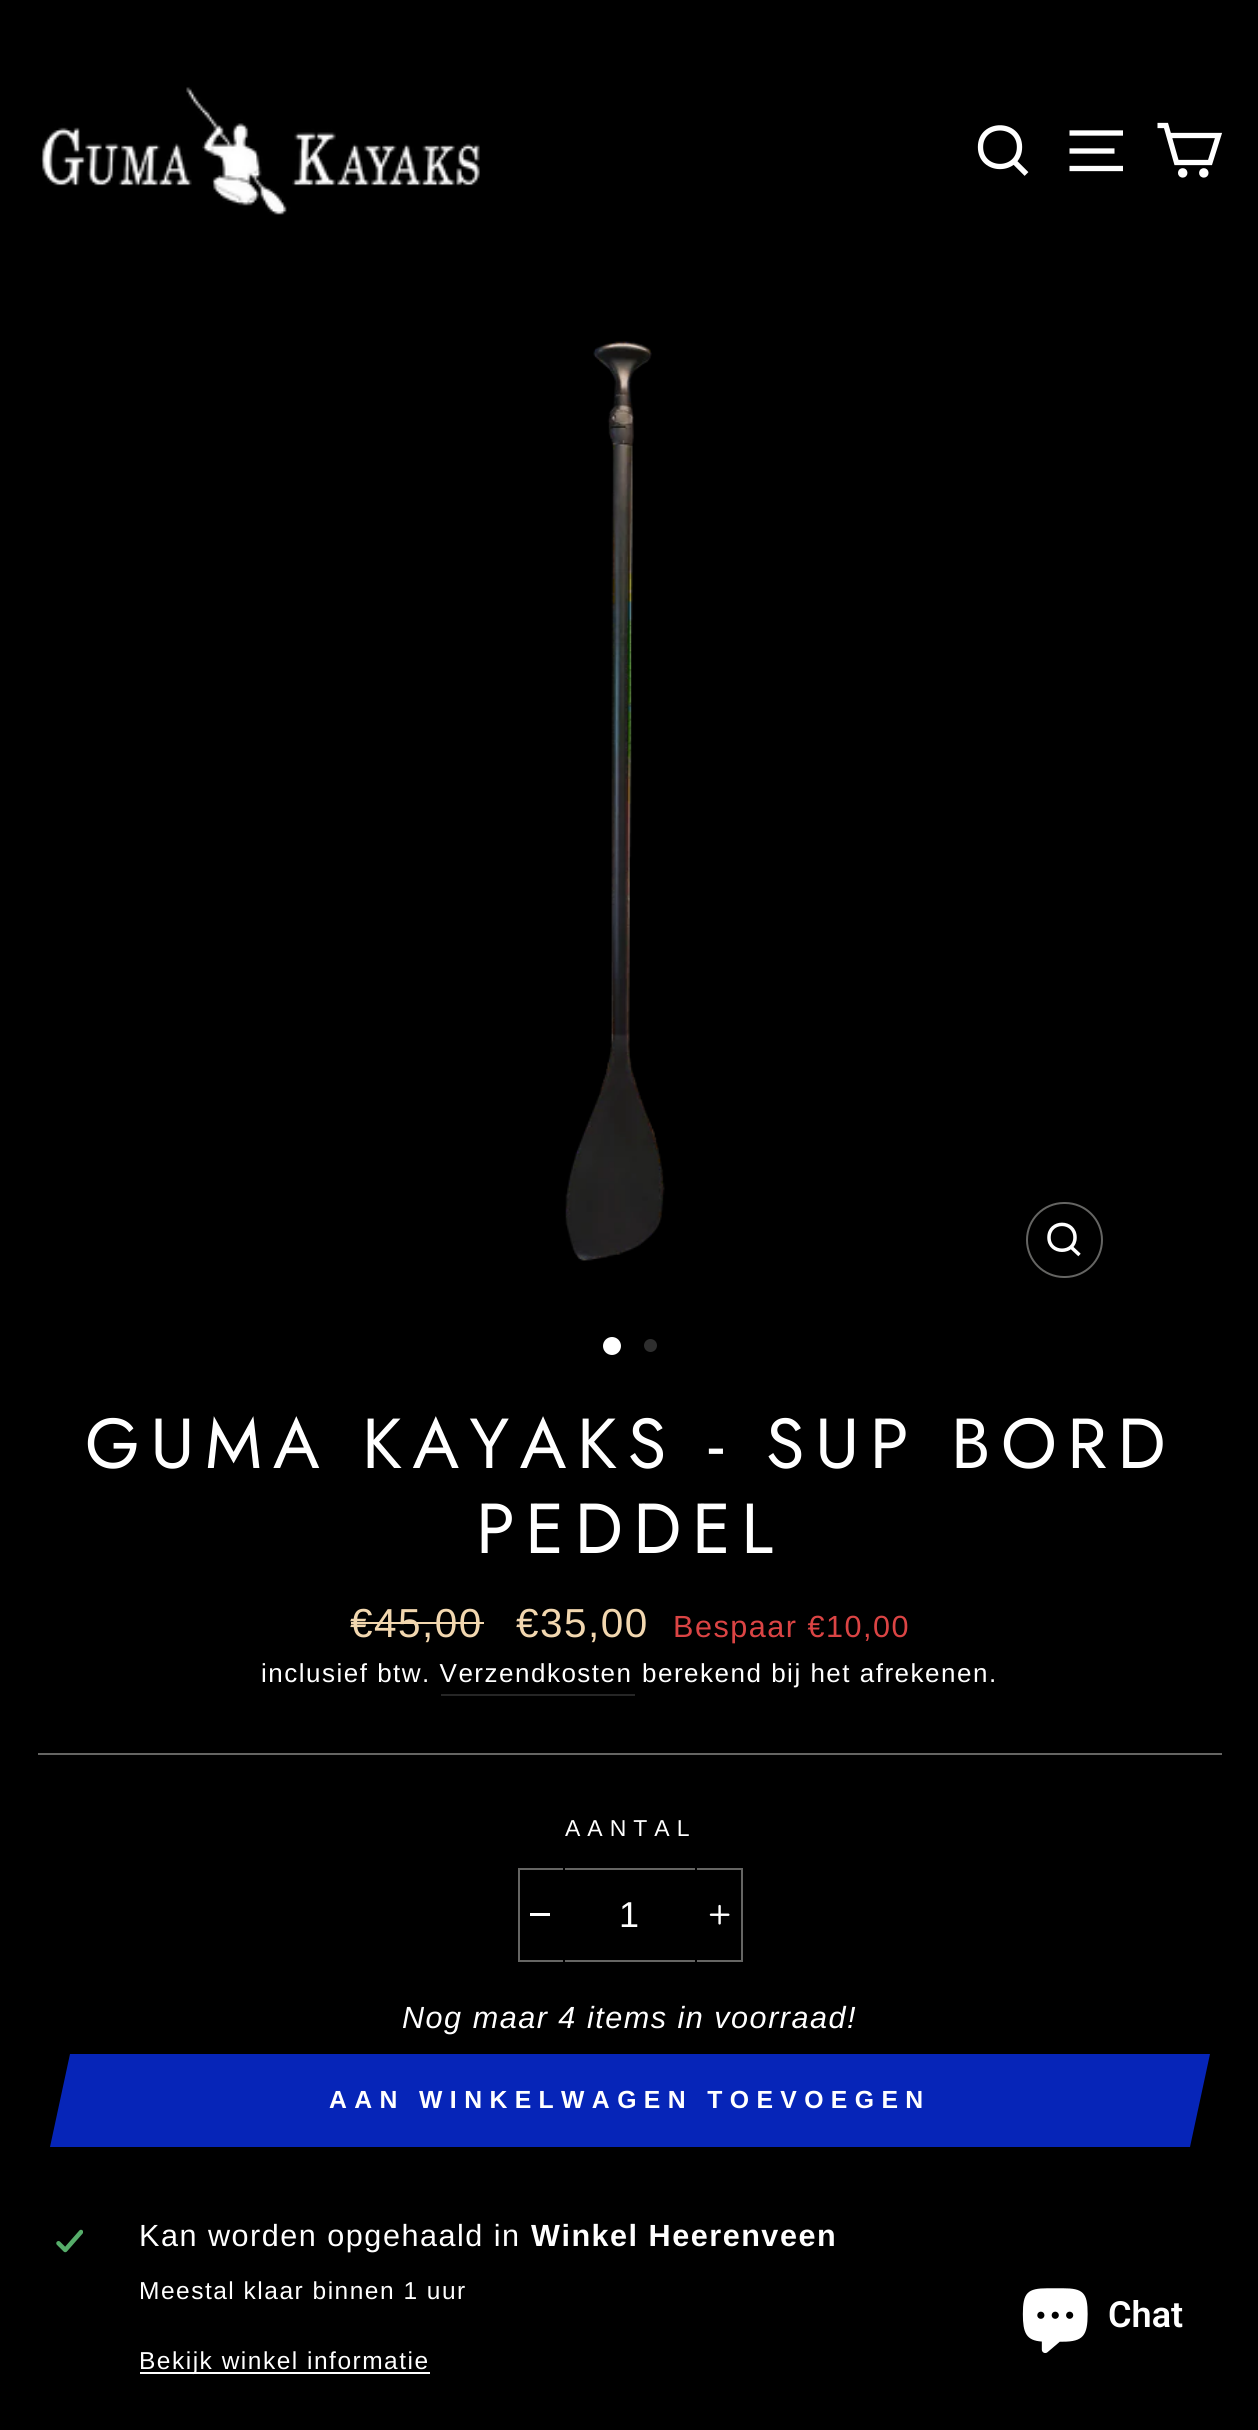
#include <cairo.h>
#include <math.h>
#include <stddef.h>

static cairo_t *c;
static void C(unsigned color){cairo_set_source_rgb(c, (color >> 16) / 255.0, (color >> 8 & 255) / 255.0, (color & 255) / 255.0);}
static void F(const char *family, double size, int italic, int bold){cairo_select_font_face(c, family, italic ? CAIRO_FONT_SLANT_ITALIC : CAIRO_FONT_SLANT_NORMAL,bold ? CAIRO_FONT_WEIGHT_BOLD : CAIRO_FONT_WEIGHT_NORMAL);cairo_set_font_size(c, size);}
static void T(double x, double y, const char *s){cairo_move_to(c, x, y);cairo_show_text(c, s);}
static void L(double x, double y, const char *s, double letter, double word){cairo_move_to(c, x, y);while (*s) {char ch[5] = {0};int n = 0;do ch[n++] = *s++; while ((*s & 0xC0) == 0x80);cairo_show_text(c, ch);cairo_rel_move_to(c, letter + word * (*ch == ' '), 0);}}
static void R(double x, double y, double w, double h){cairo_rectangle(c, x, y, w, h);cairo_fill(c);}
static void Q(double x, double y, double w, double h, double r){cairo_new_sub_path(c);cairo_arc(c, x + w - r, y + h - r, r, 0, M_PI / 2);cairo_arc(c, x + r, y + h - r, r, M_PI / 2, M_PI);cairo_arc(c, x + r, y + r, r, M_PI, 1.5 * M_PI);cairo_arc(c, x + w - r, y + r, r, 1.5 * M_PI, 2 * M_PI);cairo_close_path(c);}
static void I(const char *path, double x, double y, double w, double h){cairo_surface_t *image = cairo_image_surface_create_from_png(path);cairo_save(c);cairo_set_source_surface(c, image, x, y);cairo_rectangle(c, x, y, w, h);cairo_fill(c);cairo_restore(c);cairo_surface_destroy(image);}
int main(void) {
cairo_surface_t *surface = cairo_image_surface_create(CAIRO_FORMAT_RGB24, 1258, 2430);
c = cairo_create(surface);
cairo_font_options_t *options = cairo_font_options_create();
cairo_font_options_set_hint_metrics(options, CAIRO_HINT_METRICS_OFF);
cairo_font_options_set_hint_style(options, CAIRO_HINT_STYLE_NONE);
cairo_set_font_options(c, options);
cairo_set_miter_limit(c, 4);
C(0x000000);
cairo_paint(c);
I("1.png",40,87,440,128);
cairo_new_path(c);
cairo_move_to(c,1019.5,147);
cairo_curve_to(c,1019.5,173,980.5,173,980.5,147);
cairo_curve_to(c,980.5,121.5,1019.5,121.5,1019.5,147);
cairo_close_path(c);
cairo_move_to(c,1026.5,174);
cairo_line_to(c,1014,161.5);
C(0xffffff);
cairo_set_line_width(c,5.3);
cairo_stroke(c);
cairo_new_path(c);
cairo_move_to(c,1069.5,133);
cairo_line_to(c,1123,133);
cairo_move_to(c,1069.5,151);
cairo_line_to(c,1114.5,151);
cairo_move_to(c,1069.5,168.5);
cairo_line_to(c,1123,168.5);
cairo_stroke(c);
cairo_new_path(c);
cairo_move_to(c,1169,135.5);
cairo_line_to(c,1218.5,135.5);
cairo_line_to(c,1210,162.5);
cairo_line_to(c,1176.5,162.5);
cairo_line_to(c,1166,125.5);
cairo_line_to(c,1157.5,125.5);
cairo_stroke(c);
cairo_arc(c,1182.7,172.9,2.1,0,2 * M_PI);
cairo_fill_preserve(c);
cairo_stroke(c);
cairo_arc(c,1203.8,172.9,2.1,0,2 * M_PI);
cairo_fill_preserve(c);
cairo_stroke(c);
I("2.png",565,341,100,920);
Q(1027,1203,75,74,37);
C(0x656563);
cairo_set_line_width(c,2);
cairo_stroke(c);
cairo_new_path(c);
cairo_move_to(c,1075,1237.5);
cairo_curve_to(c,1075,1254.5,1049,1254.5,1049,1237.5);
cairo_curve_to(c,1049,1220,1075,1220,1075,1237.5);
cairo_close_path(c);
cairo_move_to(c,1079.5,1255);
cairo_line_to(c,1071,1247);
C(0xffffff);
cairo_set_line_width(c,3.5);
cairo_stroke(c);
cairo_arc(c,612,1346,9,0,2 * M_PI);
cairo_fill(c);
C(0x2e2e2e);
cairo_arc(c,650.5,1345.5,6.5,0,2 * M_PI);
cairo_fill(c);
F("Jost",70.6,0,0);
C(0xffffff);
L(85,1468,"GUMA KAYAKS - SUP BORD",10.6,0);
L(476,1553,"PEDDEL",10.6,0);
F("Liberation Sans",40.5,0,0);
C(0xf2d7af);
L(350,1637,"€45,00",1.5,0);
R(351,1622,133,2);
L(516,1637,"€35,00",1.5,0);
F("Liberation Sans",30.6,0,0);
C(0xdb4444);
L(673,1637,"Bespaar €10,00",1.5,0);
F("Liberation Sans",26,0,0);
C(0xffffff);
L(261,1682,"inclusief btw. Verzendkosten",1.5,0);
L(642,1682,"berekend bij het afrekenen.",1.5,0);
C(0x262626);
R(441,1694,194,2);
C(0x656563);
R(38,1753,1184,2);
F("Liberation Sans",23,0,0);
C(0xffffff);
L(565,1836,"AANTAL",7,0);
cairo_rectangle(c,519,1869,223,92);
C(0x656563);
cairo_set_line_width(c,2);
cairo_stroke(c);
C(0x000000);
R(563,1868,2,94);
C(0xffffff);
R(530,1913,20,3);
F("Liberation Sans",36,0,0);
L(619,1927,"1",2,0);
C(0x000000);
R(695,1868,2,94);
I("3.png",709,1904,21,21);
F("Liberation Sans",30.6,1,0);
C(0xffffff);
L(402,2028,"Nog maar 4 items in voorraad!",1.5,0);
C(0x0625b8);
R(95,2054,1070,93);
cairo_new_path(c);
cairo_move_to(c,70,2054);
cairo_line_to(c,115,2054);
cairo_line_to(c,95,2147);
cairo_line_to(c,50,2147);
cairo_close_path(c);
cairo_fill(c);
F("Liberation Sans",24.75,0,1);
C(0xffffff);
L(329,2108,"AAN WINKELWAGEN TOEVOEGEN",7.4,0);
C(0x0625b8);
cairo_new_path(c);
cairo_move_to(c,1165,2054);
cairo_line_to(c,1210,2054);
cairo_line_to(c,1190,2147);
cairo_line_to(c,1145,2147);
cairo_close_path(c);
cairo_fill(c);
I("4.png",56,2229,27,24);
F("Liberation Sans",30.6,0,0);
C(0xffffff);
L(139,2246,"Kan worden opgehaald in",1.5,0);
F("Liberation Sans",30.6,0,1);
L(531,2246,"Winkel Heerenveen",1.5,0);
F("Liberation Sans",24.5,0,0);
L(139,2299,"Meestal klaar binnen 1 uur",1.5,0);
R(140,2372,290,2);
L(139,2369,"Bekijk winkel informatie",1.5,0);
I("5.png",1022,2288,66,65);
F("Roboto SemiBold",36,0,0);
T(1108,2327,"Chat");
cairo_surface_write_to_png(surface, "o.png");
cairo_font_options_destroy(options);
cairo_destroy(c);
cairo_surface_destroy(surface);
return 0;
}
